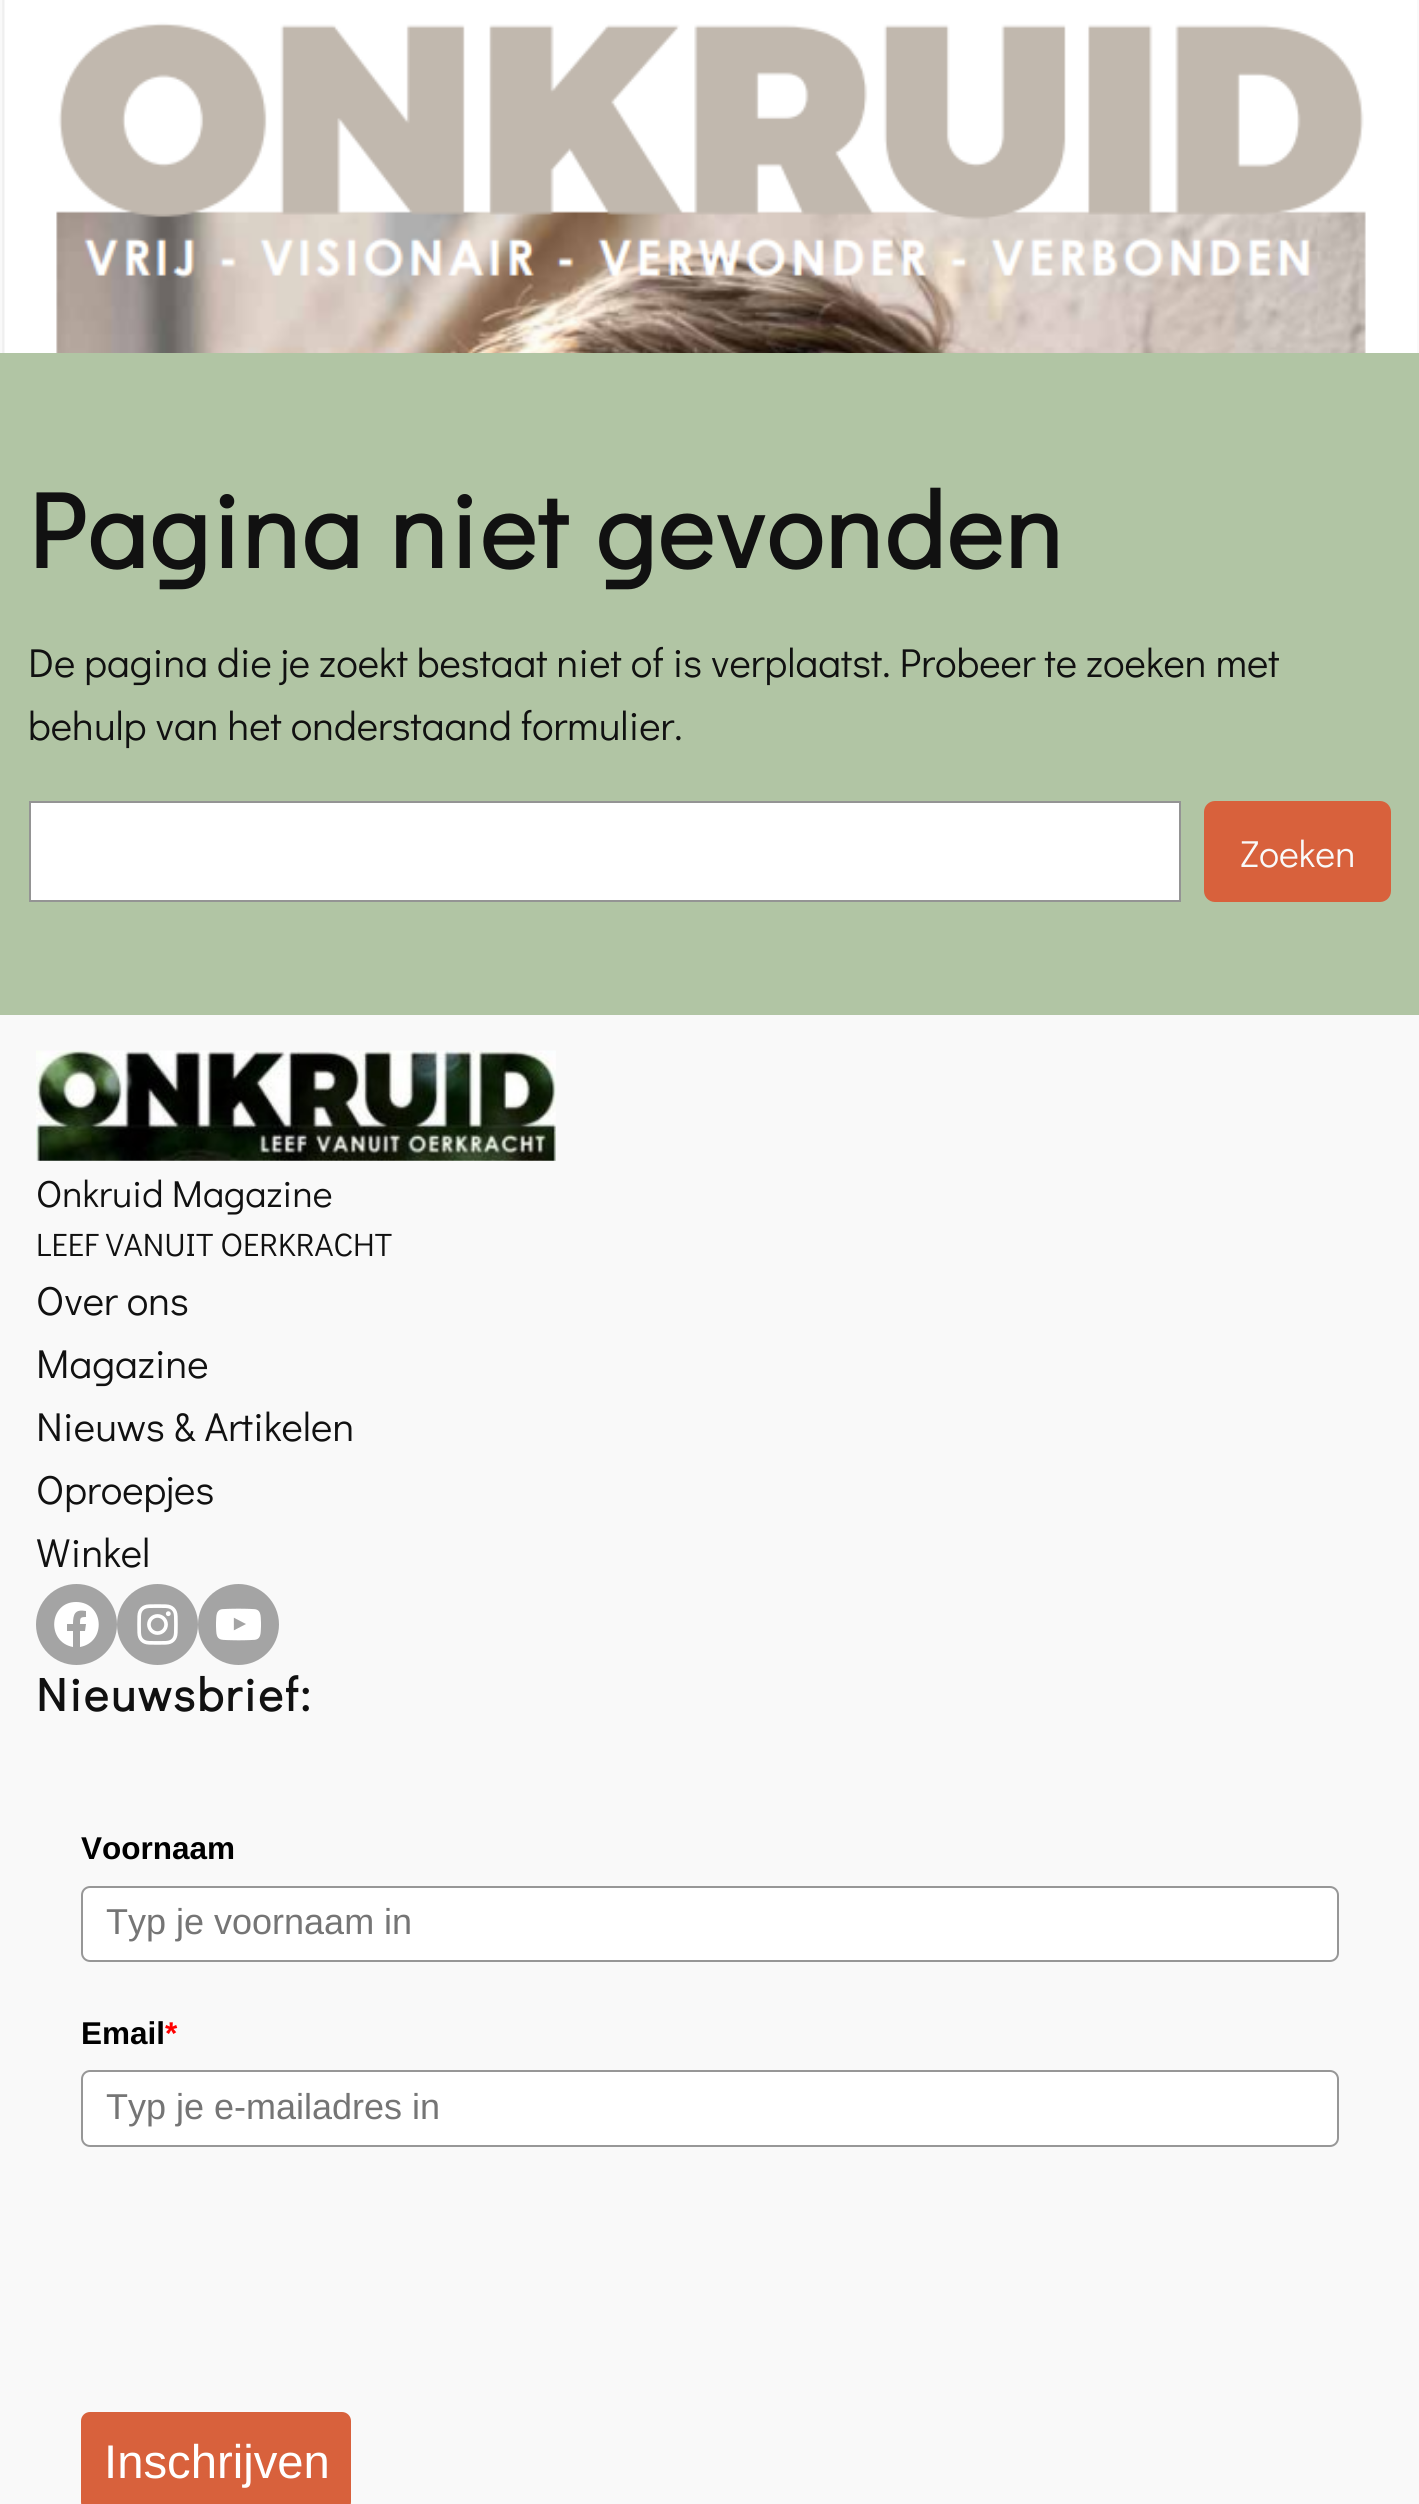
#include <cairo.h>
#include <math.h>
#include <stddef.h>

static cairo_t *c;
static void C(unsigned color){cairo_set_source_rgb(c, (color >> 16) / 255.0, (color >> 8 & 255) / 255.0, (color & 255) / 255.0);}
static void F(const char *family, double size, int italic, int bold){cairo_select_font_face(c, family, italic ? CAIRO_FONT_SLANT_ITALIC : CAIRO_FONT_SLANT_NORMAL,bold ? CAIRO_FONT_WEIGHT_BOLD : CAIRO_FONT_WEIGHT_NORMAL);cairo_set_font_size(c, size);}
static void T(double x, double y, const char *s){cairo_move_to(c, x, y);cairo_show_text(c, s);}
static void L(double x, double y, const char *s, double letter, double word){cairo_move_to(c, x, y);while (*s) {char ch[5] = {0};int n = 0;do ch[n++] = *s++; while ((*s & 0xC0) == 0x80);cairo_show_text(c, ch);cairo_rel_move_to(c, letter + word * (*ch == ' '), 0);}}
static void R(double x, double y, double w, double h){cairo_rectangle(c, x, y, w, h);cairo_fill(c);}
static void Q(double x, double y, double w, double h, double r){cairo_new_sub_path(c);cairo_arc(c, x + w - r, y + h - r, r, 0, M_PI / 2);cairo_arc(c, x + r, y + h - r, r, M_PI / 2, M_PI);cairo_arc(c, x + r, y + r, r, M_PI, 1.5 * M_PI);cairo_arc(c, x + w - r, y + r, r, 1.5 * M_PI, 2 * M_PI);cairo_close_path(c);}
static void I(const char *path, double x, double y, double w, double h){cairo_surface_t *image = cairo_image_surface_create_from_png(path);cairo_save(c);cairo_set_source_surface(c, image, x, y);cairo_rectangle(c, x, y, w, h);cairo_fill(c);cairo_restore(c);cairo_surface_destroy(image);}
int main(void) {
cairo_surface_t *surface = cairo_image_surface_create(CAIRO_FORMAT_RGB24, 1419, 2504);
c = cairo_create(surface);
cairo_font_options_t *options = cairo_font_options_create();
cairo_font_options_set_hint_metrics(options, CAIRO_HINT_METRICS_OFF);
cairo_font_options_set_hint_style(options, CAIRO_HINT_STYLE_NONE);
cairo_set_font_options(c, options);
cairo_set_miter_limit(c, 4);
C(0xb1c5a4);
cairo_paint(c);
C(0xf9f9f9);
R(0,0,1419,353);
I("1.png",2,0,1415,353);
F("Didact Gothic",106.5,0,1);
C(0x111111);
L(28,568,"Pagina niet gevonden",2.25,0);
F("Didact Gothic",40.55,0,0);
T(28,677,"De pagina die je zoekt bestaat niet of is verplaatst. Probeer te zoeken met");
T(28,740,"behulp van het onderstaand formulier.");
C(0xffffff);
cairo_rectangle(c,30,802,1150,99);
cairo_fill_preserve(c);
C(0x949494);
cairo_stroke(c);
C(0xd8613c);
Q(1204,801,187,101,11);
cairo_fill(c);
F("Didact Gothic",37.75,0,0);
C(0xf9f9f9);
T(1240,867,"Zoeken");
R(0,1015,1419,1489);
I("2.png",36,1050,520,111);
C(0x111111);
T(36,1207,"Onkruid Magazine");
F("Didact Gothic",32.4,0,0);
T(36,1256,"LEEF VANUIT OERKRACHT");
F("Didact Gothic",40.55,0,0);
T(36,1315,"Over ons");
T(36,1378,"Magazine");
T(36,1441,"Nieuws & Artikelen");
T(36,1504,"Oproepjes");
T(36,1567,"Winkel");
C(0xa4a4a4);
cairo_new_path(c);
cairo_arc(c,76.5,1624.5,40.5,0,2 * M_PI);
cairo_fill(c);
C(0xffffff);
cairo_new_path(c);
cairo_move_to(c,76,1602);
cairo_curve_to(c,49,1602,46,1642,73,1647);
cairo_line_to(c,73,1631);
cairo_line_to(c,67,1631);
cairo_line_to(c,67,1624);
cairo_line_to(c,73,1624);
cairo_curve_to(c,73,1614,75,1609,86,1611);
cairo_line_to(c,86,1617);
cairo_curve_to(c,80,1617,80,1618,80,1624);
cairo_line_to(c,86,1624);
cairo_line_to(c,85,1631);
cairo_line_to(c,80,1631);
cairo_line_to(c,80,1647);
cairo_curve_to(c,107,1642,104,1602,76,1602);
cairo_close_path(c);
cairo_fill(c);
C(0xa4a4a4);
cairo_arc(c,157.5,1624.5,40.5,0,2 * M_PI);
cairo_fill(c);
I("3.png",137,1604,41,41);
cairo_arc(c,238.5,1624.5,40.5,0,2 * M_PI);
cairo_fill(c);
I("4.png",216,1608,45,33);
F("Didact Gothic",46.5,0,1);
C(0x111111);
L(36,1711,"Nieuwsbrief:",2.25,0);
F("Liberation Sans",31.5,0,1);
C(0x000000);
T(81,1859,"Voornaam");
C(0xffffff);
Q(82,1887,1256,74,8);
cairo_fill_preserve(c);
C(0x979797);
cairo_stroke(c);
F("Liberation Sans",36,0,0);
C(0x757575);
T(106,1934,"Typ je voornaam in");
F("Liberation Sans",31.5,0,1);
C(0x000000);
T(81,2044,"Email");
C(0xff0000);
T(165,2044,"*");
C(0xffffff);
Q(82,2071,1256,75,8);
cairo_fill_preserve(c);
C(0x979797);
cairo_stroke(c);
F("Liberation Sans",36,0,0);
C(0x757575);
T(106,2119,"Typ je e-mailadres in");
C(0xd8613c);
Q(81,2412,270,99,9);
cairo_fill(c);
F("Liberation Sans",47.25,0,0);
C(0xffffff);
T(104,2478,"Inschrijven");
cairo_surface_write_to_png(surface, "o.png");
cairo_font_options_destroy(options);
cairo_destroy(c);
cairo_surface_destroy(surface);
return 0;
}
